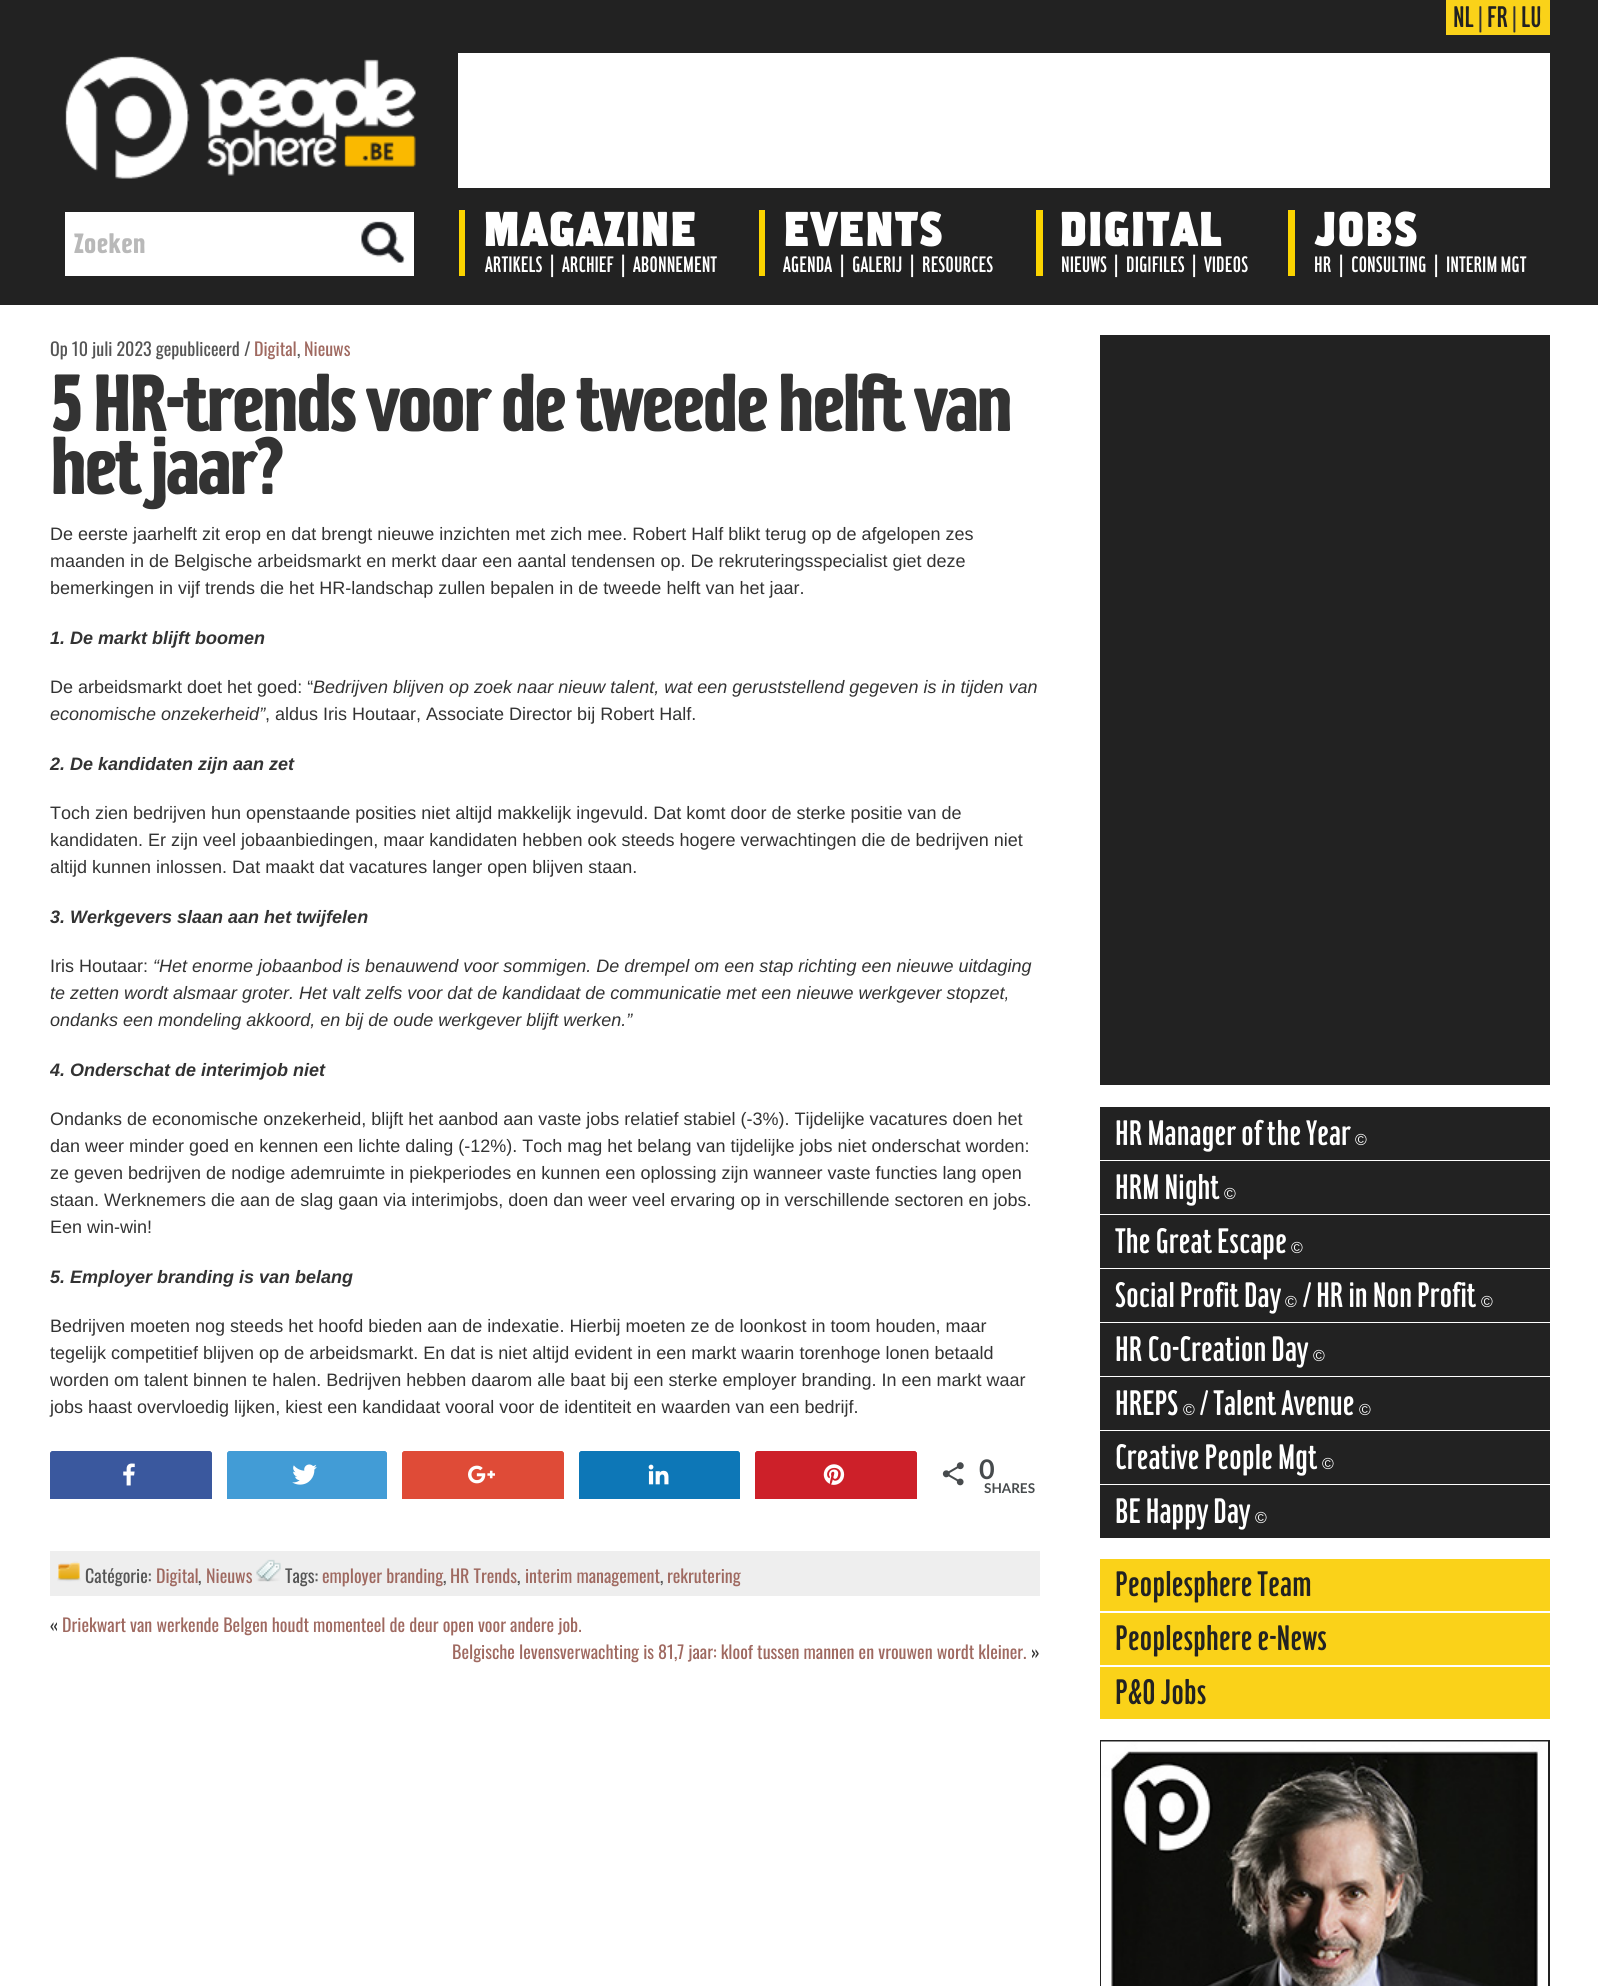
#include <cairo.h>
#include <math.h>
#include <stddef.h>

static cairo_t *c;
static void C(unsigned color){cairo_set_source_rgb(c, (color >> 16) / 255.0, (color >> 8 & 255) / 255.0, (color & 255) / 255.0);}
static void F(const char *family, double size, int italic, int bold){cairo_select_font_face(c, family, italic ? CAIRO_FONT_SLANT_ITALIC : CAIRO_FONT_SLANT_NORMAL,bold ? CAIRO_FONT_WEIGHT_BOLD : CAIRO_FONT_WEIGHT_NORMAL);cairo_set_font_size(c, size);}
static void T(double x, double y, const char *s){cairo_move_to(c, x, y);cairo_show_text(c, s);}
static void L(double x, double y, const char *s, double letter, double word){cairo_move_to(c, x, y);while (*s) {char ch[5] = {0};int n = 0;do ch[n++] = *s++; while ((*s & 0xC0) == 0x80);cairo_show_text(c, ch);cairo_rel_move_to(c, letter + word * (*ch == ' '), 0);}}
static void R(double x, double y, double w, double h){cairo_rectangle(c, x, y, w, h);cairo_fill(c);}
static void Q(double x, double y, double w, double h, double r){cairo_new_sub_path(c);cairo_arc(c, x + w - r, y + h - r, r, 0, M_PI / 2);cairo_arc(c, x + r, y + h - r, r, M_PI / 2, M_PI);cairo_arc(c, x + r, y + r, r, M_PI, 1.5 * M_PI);cairo_arc(c, x + w - r, y + r, r, 1.5 * M_PI, 2 * M_PI);cairo_close_path(c);}
static void I(const char *path, double x, double y, double w, double h){cairo_surface_t *image = cairo_image_surface_create_from_png(path);cairo_save(c);cairo_set_source_surface(c, image, x, y);cairo_rectangle(c, x, y, w, h);cairo_fill(c);cairo_restore(c);cairo_surface_destroy(image);}
int main(void) {
cairo_surface_t *surface = cairo_image_surface_create(CAIRO_FORMAT_RGB24, 1598, 1986);
c = cairo_create(surface);
cairo_font_options_t *options = cairo_font_options_create();
cairo_font_options_set_hint_metrics(options, CAIRO_HINT_METRICS_OFF);
cairo_font_options_set_hint_style(options, CAIRO_HINT_STYLE_NONE);
cairo_set_font_options(c, options);
cairo_set_miter_limit(c, 4);
C(0xffffff);
cairo_paint(c);
C(0x222222);
R(0,0,1598,305);
C(0xfad219);
R(1446,0,104,35);
F("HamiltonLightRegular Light",32,0,0);
C(0x222222);
T(1453,27,"NL");
C(0x333333);
T(1478,27,"|");
C(0x222222);
T(1487,27,"FR");
C(0x333333);
T(1512,27,"|");
C(0x222222);
T(1521,27,"LU");
I("1.png",65,56,351,123);
C(0xffffff);
R(458,53,1092,135);
R(65,212,349,64);
cairo_save(c);
cairo_rectangle(c,74,228,262,32);
cairo_clip(c);
F("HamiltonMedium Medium",30,0,0);
C(0xb9b9b9);
T(74,253,"Zoeken");
cairo_restore(c);
I("2.png",361,221,44,42);
C(0xfbd400);
R(459,210,6,66);
R(759,210,6,66);
R(1036,210,7,66);
R(1288,210,7,66);
F("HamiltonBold",52.5,0,1);
C(0xffffff);
T(483,246,"MAGAZINE");
T(783,246,"EVENTS");
T(1059,246,"DIGITAL");
T(1314,246,"JOBS");
F("HamiltonLightRegular Light",24,0,0);
T(485,272,"ARTIKELS");
F("Liberation Sans",24,0,0);
T(549,272,"|");
F("HamiltonLightRegular Light",24,0,0);
T(562,272,"ARCHIEF");
F("Liberation Sans",24,0,0);
T(620,272,"|");
F("HamiltonLightRegular Light",24,0,0);
T(633,272,"ABONNEMENT");
T(783,272,"AGENDA");
F("Liberation Sans",24,0,0);
T(839,272,"|");
F("HamiltonLightRegular Light",24,0,0);
T(852,272,"GALERIJ");
F("Liberation Sans",24,0,0);
T(909,272,"|");
F("HamiltonLightRegular Light",24,0,0);
T(922,272,"RESOURCES");
T(1061,272,"NIEUWS");
F("Liberation Sans",24,0,0);
T(1113,272,"|");
F("HamiltonLightRegular Light",24,0,0);
T(1126,272,"DIGIFILES");
F("Liberation Sans",24,0,0);
T(1191,272,"|");
F("HamiltonLightRegular Light",24,0,0);
T(1204,272,"VIDEOS");
T(1314,272,"HR");
F("Liberation Sans",24,0,0);
T(1338,272,"|");
F("HamiltonLightRegular Light",24,0,0);
T(1351,272,"CONSULTING");
F("Liberation Sans",24,0,0);
T(1433,272,"|");
F("HamiltonLightRegular Light",24,0,0);
T(1446,272,"INTERIM MGT");
F("Oswald",18,0,0);
C(0x555555);
T(50,356,"Op 10 juli 2023 gepubliceerd /");
C(0x9f6960);
T(254,356,"Digital");
C(0x555555);
T(297,356,",");
C(0x9f6960);
T(304,356,"Nieuws");
F("HamiltonMedium Medium",87,0,0);
C(0x333333);
L(50,431,"5 HR-trends voor de tweede helft van",-3.5,0);
L(50,494,"het jaar?",-3.5,0);
F("Liberation Sans",18,0,0);
T(50,540,"De eerste jaarhelft zit erop en dat brengt nieuwe inzichten met zich mee. Robert Half blikt terug op de afgelopen zes");
T(50,567,"maanden in de Belgische arbeidsmarkt en merkt daar een aantal tendensen op. De rekruteringsspecialist giet deze");
T(50,594,"bemerkingen in vijf trends die het HR-landschap zullen bepalen in de tweede helft van het jaar.");
F("Liberation Sans",18,1,1);
T(50,644,"1. De markt blijft boomen");
F("Liberation Sans",18,0,0);
T(50,693,"De arbeidsmarkt doet het goed: “");
F("Liberation Sans",18,1,0);
T(313,693,"Bedrijven blijven op zoek naar nieuw talent, wat een geruststellend gegeven is in tijden van");
T(50,720,"economische onzekerheid”");
F("Liberation Sans",18,0,0);
T(265,720,", aldus Iris Houtaar, Associate Director bij Robert Half.");
F("Liberation Sans",18,1,1);
T(50,770,"2. De kandidaten zijn aan zet");
F("Liberation Sans",18,0,0);
T(50,819,"Toch zien bedrijven hun openstaande posities niet altijd makkelijk ingevuld. Dat komt door de sterke positie van de");
T(50,846,"kandidaten. Er zijn veel jobaanbiedingen, maar kandidaten hebben ook steeds hogere verwachtingen die de bedrijven niet");
T(50,873,"altijd kunnen inlossen. Dat maakt dat vacatures langer open blijven staan.");
F("Liberation Sans",18,1,1);
T(50,923,"3. Werkgevers slaan aan het twijfelen");
F("Liberation Sans",18,0,0);
T(50,972,"Iris Houtaar:");
F("Liberation Sans",18,1,0);
T(153,972,"“Het enorme jobaanbod is benauwend voor sommigen. De drempel om een stap richting een nieuwe uitdaging");
T(50,999,"te zetten wordt alsmaar groter. Het valt zelfs voor dat de kandidaat de communicatie met een nieuwe werkgever stopzet,");
T(50,1026,"ondanks een mondeling akkoord, en bij de oude werkgever blijft werken.”");
cairo_save(c);
cairo_rectangle(c,50,362,990,1393);
cairo_clip(c);
F("Liberation Sans",18,1,1);
T(50,1076,"4. Onderschat de interimjob niet");
cairo_restore(c);
F("Liberation Sans",18,0,0);
T(50,1125,"Ondanks de economische onzekerheid, blijft het aanbod aan vaste jobs relatief stabiel (-3%). Tijdelijke vacatures doen het");
T(50,1152,"dan weer minder goed en kennen een lichte daling (-12%). Toch mag het belang van tijdelijke jobs niet onderschat worden:");
T(50,1179,"ze geven bedrijven de nodige ademruimte in piekperiodes en kunnen een oplossing zijn wanneer vaste functies lang open");
T(50,1206,"staan. Werknemers die aan de slag gaan via interimjobs, doen dan weer veel ervaring op in verschillende sectoren en jobs.");
T(50,1233,"Een win-win!");
F("Liberation Sans",18,1,1);
T(50,1283,"5. Employer branding is van belang");
F("Liberation Sans",18,0,0);
T(50,1332,"Bedrijven moeten nog steeds het hoofd bieden aan de indexatie. Hierbij moeten ze de loonkost in toom houden, maar");
T(50,1359,"tegelijk competitief blijven op de arbeidsmarkt. En dat is niet altijd evident in een markt waarin torenhoge lonen betaald");
T(50,1386,"worden om talent binnen te halen. Bedrijven hebben daarom alle baat bij een sterke employer branding. In een markt waar");
T(50,1413,"jobs haast overvloedig lijken, kiest een kandidaat vooral voor de identiteit en waarden van een bedrijf.");
C(0x3a589e);
cairo_new_path(c);
cairo_move_to(c,53,1451);
cairo_line_to(c,209,1451);
cairo_curve_to(c,210.5,1451,212,1452.5,212,1454);
cairo_line_to(c,212,1499);
cairo_line_to(c,50,1499);
cairo_line_to(c,50,1454);
cairo_curve_to(c,50,1452.5,51.5,1451,53,1451);
cairo_close_path(c);
cairo_fill(c);
cairo_save(c);
cairo_rectangle(c,50,1451,990,48);
cairo_clip(c);
Q(51,1452,160,49,2);
cairo_stroke(c);
cairo_restore(c);
I("3.png",123,1463,12,23);
C(0x429cd6);
cairo_new_path(c);
cairo_move_to(c,230,1451);
cairo_line_to(c,384,1451);
cairo_curve_to(c,385.5,1451,387,1452.5,387,1454);
cairo_line_to(c,387,1499);
cairo_line_to(c,227,1499);
cairo_line_to(c,227,1454);
cairo_curve_to(c,227,1452.5,228.5,1451,230,1451);
cairo_close_path(c);
cairo_fill(c);
cairo_save(c);
cairo_rectangle(c,50,1451,990,48);
cairo_clip(c);
Q(228,1452,158,49,2);
cairo_stroke(c);
cairo_restore(c);
I("4.png",292,1464,25,21);
C(0xdf4b37);
cairo_new_path(c);
cairo_move_to(c,405,1451);
cairo_line_to(c,561,1451);
cairo_curve_to(c,562.5,1451,564,1452.5,564,1454);
cairo_line_to(c,564,1499);
cairo_line_to(c,402,1499);
cairo_line_to(c,402,1454);
cairo_curve_to(c,402,1452.5,403.5,1451,405,1451);
cairo_close_path(c);
cairo_fill(c);
cairo_save(c);
cairo_rectangle(c,50,1451,990,48);
cairo_clip(c);
Q(403,1452,160,49,2);
cairo_stroke(c);
cairo_restore(c);
I("5.png",468,1465,27,19);
C(0x0d77b7);
cairo_new_path(c);
cairo_move_to(c,582,1451);
cairo_line_to(c,737,1451);
cairo_curve_to(c,738.5,1451,740,1452.5,740,1454);
cairo_line_to(c,740,1499);
cairo_line_to(c,579,1499);
cairo_line_to(c,579,1454);
cairo_curve_to(c,579,1452.5,580.5,1451,582,1451);
cairo_close_path(c);
cairo_fill(c);
cairo_save(c);
cairo_rectangle(c,50,1451,990,48);
cairo_clip(c);
Q(580,1452,159,49,2);
cairo_stroke(c);
cairo_restore(c);
I("6.png",648,1464,21,21);
C(0xcd2029);
cairo_new_path(c);
cairo_move_to(c,758,1451);
cairo_line_to(c,914,1451);
cairo_curve_to(c,915.5,1451,917,1452.5,917,1454);
cairo_line_to(c,917,1499);
cairo_line_to(c,755,1499);
cairo_line_to(c,755,1454);
cairo_curve_to(c,755,1452.5,756.5,1451,758,1451);
cairo_close_path(c);
cairo_fill(c);
cairo_save(c);
cairo_rectangle(c,50,1451,990,48);
cairo_clip(c);
Q(756,1452,160,49,2);
cairo_stroke(c);
cairo_restore(c);
I("7.png",823,1464,22,21);
I("8.png",942,1462,22,24);
F("Lato",27,0,1);
C(0x474b4d);
T(979,1479,"0");
F("Lato",13.5,0,1);
T(984,1493,"SHARES");
C(0xeeeeee);
R(50,1551,990,45);
I("9.png",57,1561,24,21);
F("Oswald",18,0,0);
C(0x555555);
T(85,1583,"Catégorie:");
C(0x9f6960);
T(156,1583,"Digital");
C(0x555555);
T(198,1583,",");
C(0x9f6960);
T(206,1583,"Nieuws");
I("10.png",256,1559,25,23);
C(0x555555);
T(285,1583,"Tags:");
C(0x9f6960);
T(322,1583,"employer branding");
C(0x555555);
T(443,1583,",");
C(0x9f6960);
T(450,1583,"HR Trends");
C(0x555555);
T(517,1583,",");
C(0x9f6960);
T(525,1583,"interim management");
C(0x555555);
T(660,1583,",");
C(0x9f6960);
T(667,1583,"rekrutering");
C(0x333333);
T(50,1632,"«");
C(0x9f6960);
T(62,1632,"Driekwart van werkende Belgen houdt momenteel de deur open voor andere job.");
T(452,1659,"Belgische levensverwachting is 81,7 jaar: kloof tussen mannen en vrouwen wordt kleiner.");
C(0x333333);
T(1031,1659,"»");
C(0x222222);
R(1100,335,450,1651);
C(0xffffff);
R(1100,1085,450,655);
C(0x222222);
R(1100,1107,450,53);
F("HamiltonLightRegular Light",38,0,0);
C(0xffffff);
T(1115,1145,"HR Manager of the Year");
F("Liberation Sans",16,0,0);
T(1355,1145,"©");
C(0x222222);
R(1100,1161,450,53);
F("HamiltonLightRegular Light",38,0,0);
C(0xffffff);
T(1115,1199,"HRM Night");
F("Liberation Sans",16,0,0);
T(1224,1199,"©");
C(0x222222);
R(1100,1215,450,53);
F("HamiltonLightRegular Light",38,0,0);
C(0xffffff);
T(1115,1253,"The Great Escape");
F("Liberation Sans",16,0,0);
T(1291,1253,"©");
C(0x222222);
R(1100,1269,450,53);
F("HamiltonLightRegular Light",38,0,0);
C(0xffffff);
T(1115,1307,"Social Profit Day");
F("Liberation Sans",16,0,0);
T(1285,1307,"©");
F("HamiltonLightRegular Light",38,0,0);
T(1303,1307,"/ HR in Non Profit");
F("Liberation Sans",16,0,0);
T(1481,1307,"©");
C(0x222222);
R(1100,1323,450,53);
F("HamiltonLightRegular Light",38,0,0);
C(0xffffff);
T(1115,1361,"HR Co-Creation Day");
F("Liberation Sans",16,0,0);
T(1313,1361,"©");
C(0x222222);
R(1100,1377,450,53);
F("HamiltonLightRegular Light",38,0,0);
C(0xffffff);
T(1115,1415,"HREPS");
F("Liberation Sans",16,0,0);
T(1183,1415,"©");
F("HamiltonLightRegular Light",38,0,0);
T(1200,1415,"/ Talent Avenue");
F("Liberation Sans",16,0,0);
T(1359,1415,"©");
C(0x222222);
R(1100,1431,450,53);
F("HamiltonLightRegular Light",38,0,0);
C(0xffffff);
T(1115,1469,"Creative People Mgt");
F("Liberation Sans",16,0,0);
T(1322,1469,"©");
C(0x222222);
R(1100,1485,450,53);
F("HamiltonLightRegular Light",38,0,0);
C(0xffffff);
T(1115,1523,"BE Happy Day");
F("Liberation Sans",16,0,0);
T(1255,1523,"©");
C(0xfad219);
R(1100,1559,450,52);
F("HamiltonLightRegular Light",38,0,0);
C(0x222222);
T(1115,1596,"Peoplesphere Team");
C(0xfad219);
R(1100,1613,450,52);
C(0x222222);
T(1115,1650,"Peoplesphere e-News");
C(0xfad219);
R(1100,1667,450,52);
C(0x222222);
T(1115,1704,"P&O Jobs");
I("11.png",1101,1741,447,245);
cairo_surface_write_to_png(surface, "o.png");
cairo_font_options_destroy(options);
cairo_destroy(c);
cairo_surface_destroy(surface);
return 0;
}
